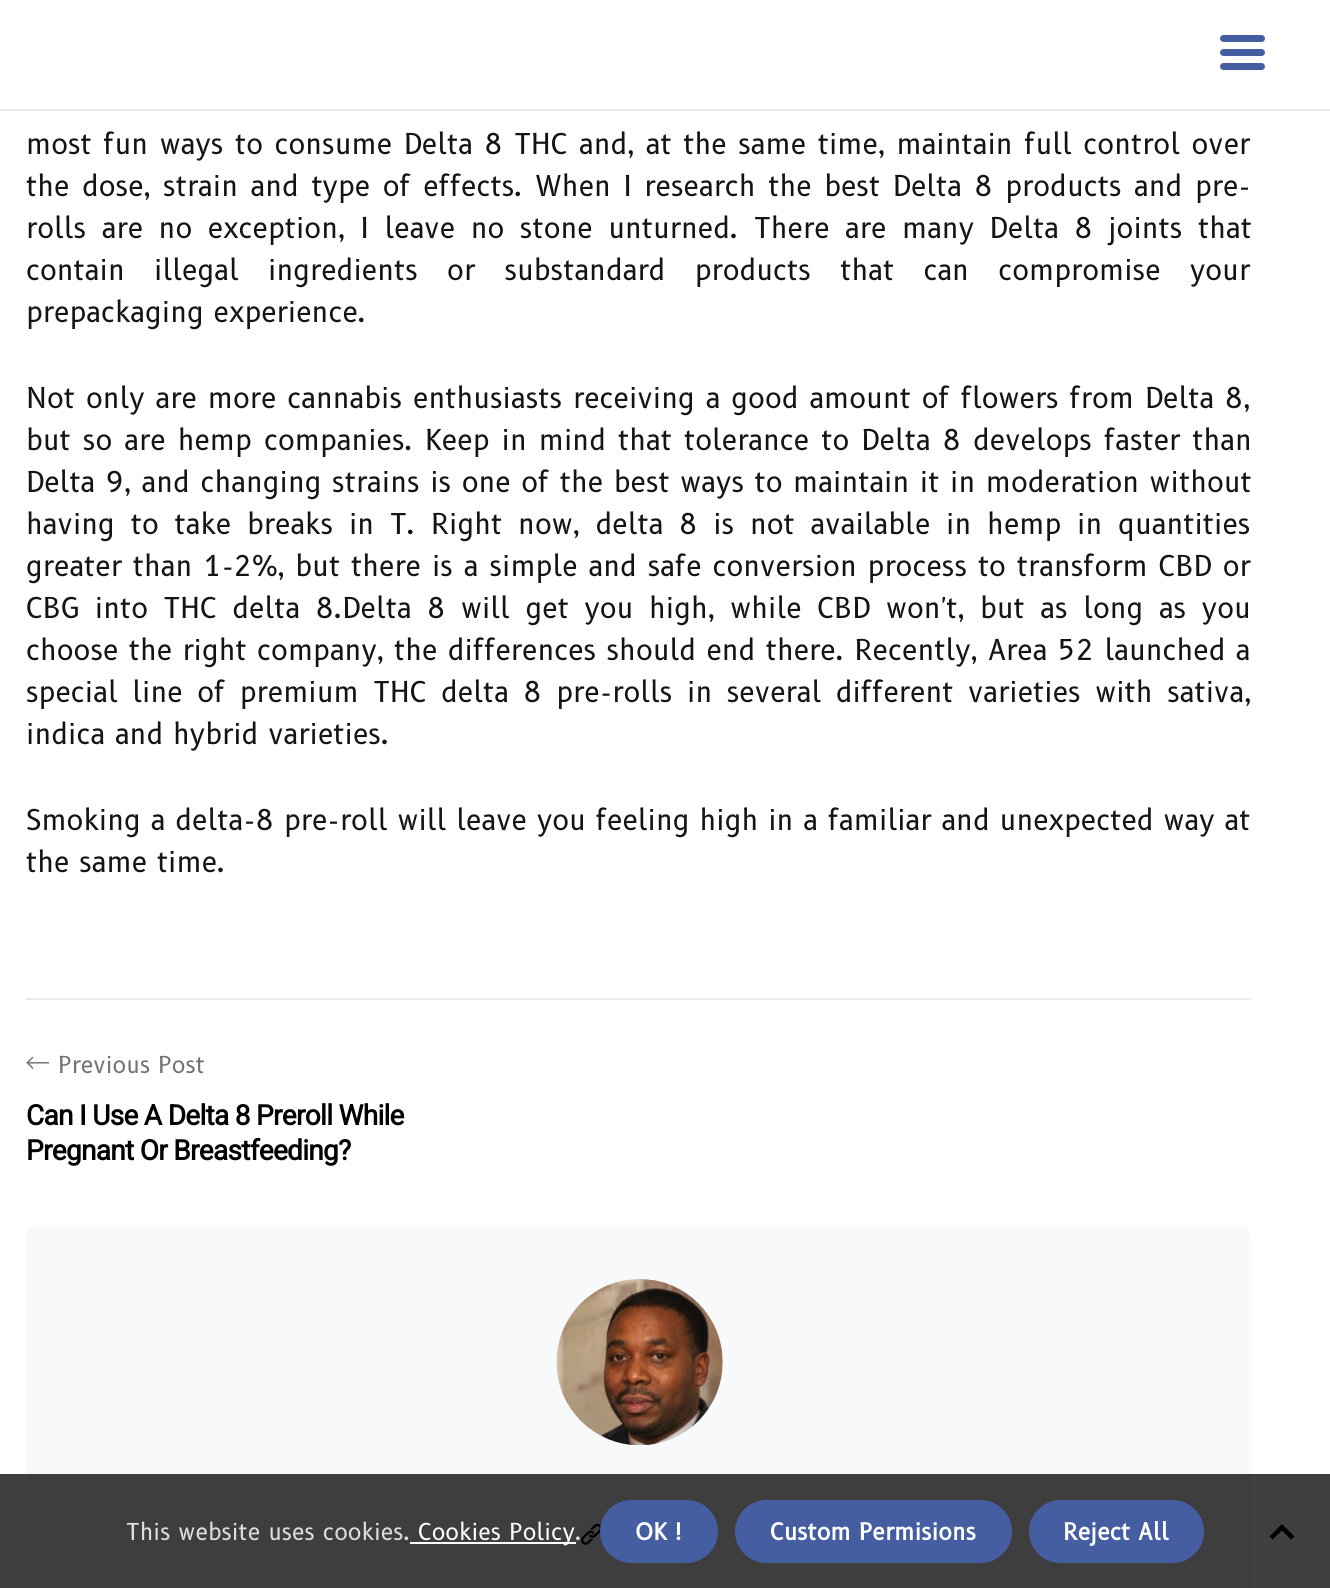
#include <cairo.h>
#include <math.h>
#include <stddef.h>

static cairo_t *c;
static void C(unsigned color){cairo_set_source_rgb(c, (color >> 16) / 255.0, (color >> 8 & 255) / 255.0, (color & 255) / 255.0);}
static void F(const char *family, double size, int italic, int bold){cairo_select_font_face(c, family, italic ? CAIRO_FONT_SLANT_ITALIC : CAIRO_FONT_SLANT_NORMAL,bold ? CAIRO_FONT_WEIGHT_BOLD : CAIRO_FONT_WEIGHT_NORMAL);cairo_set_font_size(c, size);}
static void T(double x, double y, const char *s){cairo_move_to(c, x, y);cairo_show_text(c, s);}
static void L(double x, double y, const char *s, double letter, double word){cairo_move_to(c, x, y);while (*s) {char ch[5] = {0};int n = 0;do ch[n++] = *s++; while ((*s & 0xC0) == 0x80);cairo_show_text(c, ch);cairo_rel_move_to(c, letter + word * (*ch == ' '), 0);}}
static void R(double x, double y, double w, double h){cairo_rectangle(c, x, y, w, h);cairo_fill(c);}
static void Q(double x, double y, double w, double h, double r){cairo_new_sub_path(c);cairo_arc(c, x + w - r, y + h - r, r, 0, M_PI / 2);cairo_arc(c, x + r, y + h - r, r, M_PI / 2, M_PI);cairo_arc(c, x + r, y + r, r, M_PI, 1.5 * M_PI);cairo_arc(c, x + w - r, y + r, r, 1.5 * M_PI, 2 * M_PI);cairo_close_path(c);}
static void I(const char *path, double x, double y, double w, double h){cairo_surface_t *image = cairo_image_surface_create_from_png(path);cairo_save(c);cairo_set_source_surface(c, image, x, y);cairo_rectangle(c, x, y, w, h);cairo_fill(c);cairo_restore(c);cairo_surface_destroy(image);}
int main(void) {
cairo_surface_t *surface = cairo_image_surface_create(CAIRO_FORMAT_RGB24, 1330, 1588);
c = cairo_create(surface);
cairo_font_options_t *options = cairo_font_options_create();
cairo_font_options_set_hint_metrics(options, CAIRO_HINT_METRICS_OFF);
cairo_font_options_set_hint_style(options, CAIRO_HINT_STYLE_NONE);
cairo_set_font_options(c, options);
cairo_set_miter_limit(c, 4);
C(0xffffff);
cairo_paint(c);
C(0xebebeb);
R(0,109,1330,2);
C(0x455ea1);
Q(1220,35,45,7,3.5);
cairo_fill(c);
Q(1220,49,45,7,3.5);
cairo_fill(c);
Q(1220,63,45,7,3.5);
cairo_fill(c);
F("B612",28,0,0);
C(0x121416);
L(26,154,"most fun ways to consume Delta 8 THC and, at the same time, maintain full control over",0,1.75);
L(26,196,"the dose, strain and type of effects. When I research the best Delta 8 products and pre-",0,2.75);
L(26,238,"rolls are no exception, I leave no stone unturned. There are many Delta 8 joints that",0,5.75);
L(26,280,"contain illegal ingredients or substandard products that can compromise your",0,19.5);
T(26,322,"prepackaging experience.");
L(26,408,"Not only are more cannabis enthusiasts receiving a good amount of flowers from Delta 8,",0,1.1);
L(26,450,"but so are hemp companies. Keep in mind that tolerance to Delta 8 develops faster than",0,2.25);
L(26,492,"Delta 9, and changing strains is one of the best ways to maintain it in moderation without",0,.75);
L(26,534,"having to take breaks in T. Right now, delta 8 is not available in hemp in quantities",0,6);
L(26,576,"greater than 1-2%, but there is a simple and safe conversion process to transform CBD or",0,1.1);
L(26,618,"CBG into THC delta 8.Delta 8 will get you high, while CBD won't, but as long as you",0,5.75);
L(26,660,"choose the right company, the differences should end there. Recently, Area 52 launched a",0,.5);
L(26,702,"special line of premium THC delta 8 pre-rolls in several different varieties with sativa,",0,4.75);
T(26,744,"indica and hybrid varieties.");
L(26,830,"Smoking a delta-8 pre-roll will leave you feeling high in a familiar and unexpected way at",0,.1);
T(26,872,"the same time.");
C(0xebebeb);
R(26,998,1225,2);
I("1.png",26,1056,23,13);
F("B612",22.75,0,0);
C(0x737373);
T(58,1073,"Previous Post");
F("Roboto",28,0,1);
C(0x000000);
L(26,1125,"Can I Use A Delta 8 Preroll While",-.7,0);
L(26,1160,"Pregnant Or Breastfeeding?",-.7,0);
C(0xf8f9fa);
Q(26,1227,1225,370,9);
cairo_fill(c);
I("2.png",556,1279,167,167);
I("3.png",581,1523,20,22);
C(0x000000);
cairo_new_path(c);
cairo_move_to(c,1269.5,1536.5);
cairo_line_to(c,1282,1524);
cairo_line_to(c,1282,1530.5);
cairo_line_to(c,1272.5,1539.5);
cairo_close_path(c);
cairo_move_to(c,1294.5,1536.5);
cairo_line_to(c,1291,1539.5);
cairo_line_to(c,1282,1530.5);
cairo_line_to(c,1282,1524);
cairo_close_path(c);
cairo_fill(c);
cairo_set_source_rgba(c,0,0,0,0.75);
R(0,1474,1330,114);
F("B612",22.75,0,0);
C(0xdbe0df);
T(126,1540,"This website uses cookies.");
C(0xffffff);
R(410,1542,166,2);
T(418,1540,"Cookies Policy");
C(0xdbe0df);
T(575,1540,".");
C(0x455ea1);
Q(600,1500,118,63,31.5);
cairo_fill(c);
F("B612",22.75,0,1);
C(0xffffff);
T(635,1540,"OK !");
C(0x455ea1);
Q(735,1500,277,63,31.5);
cairo_fill(c);
C(0xffffff);
T(770,1540,"Custom Permisions");
C(0x455ea1);
Q(1029,1500,175,63,31.5);
cairo_fill(c);
C(0xffffff);
T(1063,1540,"Reject All");
cairo_surface_write_to_png(surface, "o.png");
cairo_font_options_destroy(options);
cairo_destroy(c);
cairo_surface_destroy(surface);
return 0;
}
